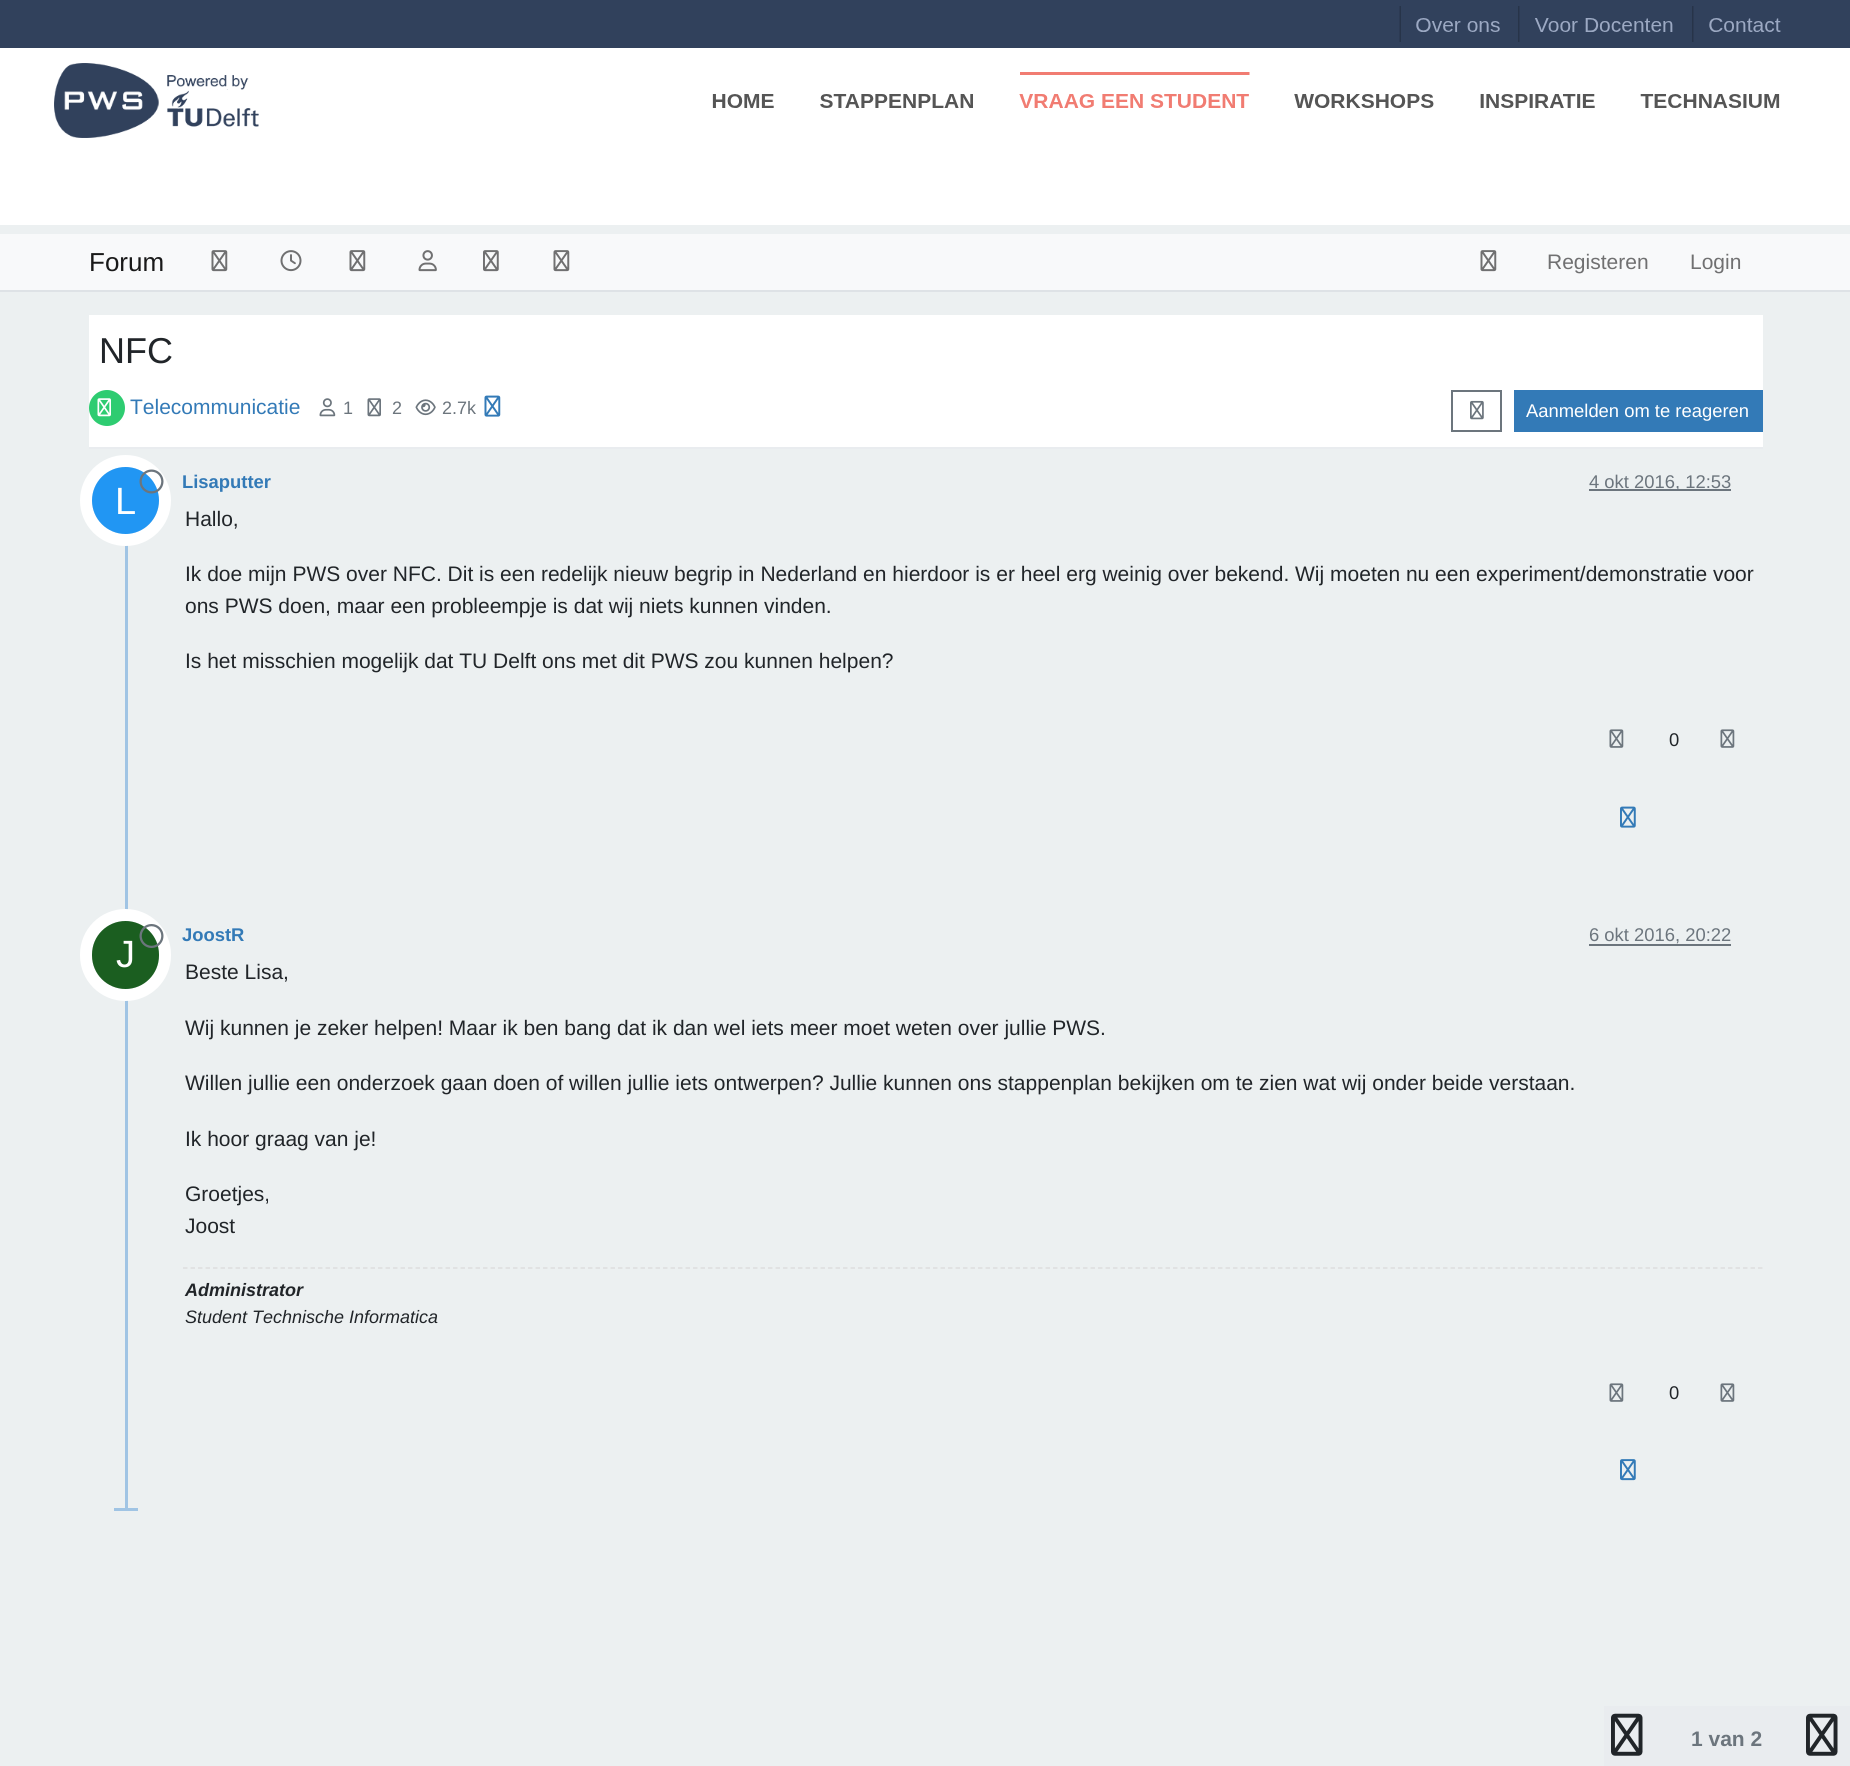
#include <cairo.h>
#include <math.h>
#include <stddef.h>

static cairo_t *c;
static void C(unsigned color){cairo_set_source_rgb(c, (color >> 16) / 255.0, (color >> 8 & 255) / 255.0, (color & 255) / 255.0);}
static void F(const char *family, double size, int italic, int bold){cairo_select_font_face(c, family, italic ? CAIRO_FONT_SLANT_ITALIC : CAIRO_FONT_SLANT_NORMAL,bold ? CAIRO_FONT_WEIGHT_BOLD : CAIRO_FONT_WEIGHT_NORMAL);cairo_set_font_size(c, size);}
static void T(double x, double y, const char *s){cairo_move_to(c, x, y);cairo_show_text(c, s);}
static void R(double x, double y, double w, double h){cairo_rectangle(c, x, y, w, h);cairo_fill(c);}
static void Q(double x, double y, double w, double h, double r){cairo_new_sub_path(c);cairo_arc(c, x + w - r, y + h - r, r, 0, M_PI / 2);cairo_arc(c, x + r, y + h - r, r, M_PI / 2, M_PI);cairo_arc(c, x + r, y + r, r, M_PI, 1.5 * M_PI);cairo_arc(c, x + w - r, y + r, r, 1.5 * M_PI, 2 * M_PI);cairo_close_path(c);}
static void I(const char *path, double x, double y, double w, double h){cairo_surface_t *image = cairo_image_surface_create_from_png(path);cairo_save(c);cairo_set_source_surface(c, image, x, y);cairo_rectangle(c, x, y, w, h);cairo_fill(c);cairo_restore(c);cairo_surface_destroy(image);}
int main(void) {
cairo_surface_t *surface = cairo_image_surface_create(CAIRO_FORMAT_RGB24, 1850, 1766);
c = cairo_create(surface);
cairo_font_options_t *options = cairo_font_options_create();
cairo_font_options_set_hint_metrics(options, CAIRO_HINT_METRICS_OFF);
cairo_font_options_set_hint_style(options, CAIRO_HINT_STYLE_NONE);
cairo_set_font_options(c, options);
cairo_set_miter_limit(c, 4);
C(0xecf0f1);
cairo_paint(c);
I("1.png",0,0,1850,138);
C(0xffffff);
R(0,138,1850,87);
C(0xf8f9fa);
R(0,234,1850,56);
C(0xdee2e6);
R(0,290,1850,2);
F("Liberation Sans",26,0,0);
C(0x191919);
T(89,271,"Forum");
I("2.png",211,250,17,22);
I("3.png",280,250,22,22);
I("2.png",349,250,17,22);
I("4.png",418,250,19,22);
I("5.png",483,250,16,22);
I("2.png",553,250,17,22);
I("2.png",1480,250,17,22);
F("Liberation Sans",21,0,0);
C(0x707071);
T(1547,269,"Registeren");
T(1690,269,"Login");
C(0xffffff);
R(89,315,1674,132);
F("Liberation Sans",36,0,0);
C(0x212529);
T(99,363,"NFC");
C(0xe9ecef);
R(89,447,1674,2);
C(0x2ecc71);
cairo_new_path(c);
cairo_arc(c,107,408,18,0,2 * M_PI);
cairo_fill(c);
I("6.png",97,398,14,19);
F("Liberation Sans",21,0,0);
C(0x337ab7);
T(130,414,"Telecommunicatie");
I("7.png",319,398,17,19);
F("Liberation Sans",18,0,0);
C(0x6c757d);
T(343,414,"1");
I("8.png",367,398,14,19);
T(392,414,"2");
I("9.png",415,399,21,17);
T(442,414,"2.7k");
I("10.png",484,395,17,22);
cairo_rectangle(c,1452,391,49,40);
cairo_stroke(c);
I("11.png",1470,400,14,20);
C(0x337ab7);
R(1514,390,249,42);
F("Liberation Sans",18.4,0,0);
C(0xffffff);
T(1526,417,"Aanmelden om te reageren");
C(0xa0c4e4);
R(125,464,3,1047);
F("Liberation Sans",18.4,0,1);
C(0x337ab7);
T(182,488,"Lisaputter");
C(0x6c757d);
R(1589,489,142,2);
F("Liberation Sans",18.4,0,0);
T(1589,488,"4 okt 2016, 12:53");
cairo_new_path(c);
cairo_arc(c,125.5,500.5,39.5,0,2 * M_PI);
C(0xffffff);
cairo_set_line_width(c,12);
cairo_stroke(c);
C(0x2196f3);
cairo_arc(c,125.5,500.5,33.5,0,2 * M_PI);
cairo_fill(c);
I("12.png",139,469,25,25);
F("Liberation Sans",38,0,0);
C(0xffffff);
T(115,514,"L");
F("Liberation Sans",21,0,0);
C(0x212529);
T(185,526,"Hallo,");
T(185,581,"Ik doe mijn PWS over NFC. Dit is een redelijk nieuw begrip in Nederland en hierdoor is er heel erg weinig over bekend. Wij moeten nu een experiment/demonstratie voor");
T(185,613,"ons PWS doen, maar een probleempje is dat wij niets kunnen vinden.");
T(185,668,"Is het misschien mogelijk dat TU Delft ons met dit PWS zou kunnen helpen?");
I("13.png",1609,729,15,19);
F("Liberation Sans",18.4,0,0);
T(1669,746,"0");
I("13.png",1720,729,15,19);
I("14.png",1620,806,16,22);
F("Liberation Sans",18.4,0,1);
C(0x337ab7);
T(182,941,"JoostR");
F("Liberation Sans",18.4,0,0);
C(0x6c757d);
T(1589,941,"6 okt 2016, 20:22");
R(1589,944,142,2);
Q(86,915,79,80,39.5);
C(0xffffff);
cairo_stroke(c);
C(0x1b5e20);
Q(92,921,67,68,33.5);
cairo_fill(c);
I("15.png",139,924,25,24);
F("Liberation Sans",38,0,0);
C(0xffffff);
T(116,967,"J");
F("Liberation Sans",21,0,0);
C(0x212529);
T(185,979,"Beste Lisa,");
T(185,1035,"Wij kunnen je zeker helpen! Maar ik ben bang dat ik dan wel iets meer moet weten over jullie PWS.");
T(185,1090,"Willen jullie een onderzoek gaan doen of willen jullie iets ontwerpen? Jullie kunnen ons stappenplan bekijken om te zien wat wij onder beide verstaan.");
T(185,1146,"Ik hoor graag van je!");
T(185,1201,"Groetjes,");
T(185,1233,"Joost");
cairo_new_path(c);
cairo_move_to(c,183,1268);
cairo_line_to(c,1762.5,1268);
C(0xdedede);
cairo_set_line_width(c,1.5);
cairo_set_dash(c,(double[]){4.5,3},2,0);
cairo_stroke(c);
F("Liberation Sans",18,1,1);
C(0x212529);
T(185,1296,"Administrator");
F("Liberation Sans",18,1,0);
T(185,1323,"Student Technische Informatica");
I("13.png",1609,1383,15,19);
F("Liberation Sans",18.4,0,0);
T(1669,1399,"0");
I("13.png",1720,1383,15,19);
I("16.png",1620,1459,16,22);
C(0xa0c4e4);
R(114,1508,24,3);
C(0xe9ecef);
R(1604,1706,246,60);
I("17.png",1611,1713,32,43);
F("Liberation Sans",21,0,1);
C(0x6c757d);
T(1691,1746,"1 van 2");
I("17.png",1806,1713,32,43);
cairo_surface_write_to_png(surface, "o.png");
cairo_font_options_destroy(options);
cairo_destroy(c);
cairo_surface_destroy(surface);
return 0;
}
